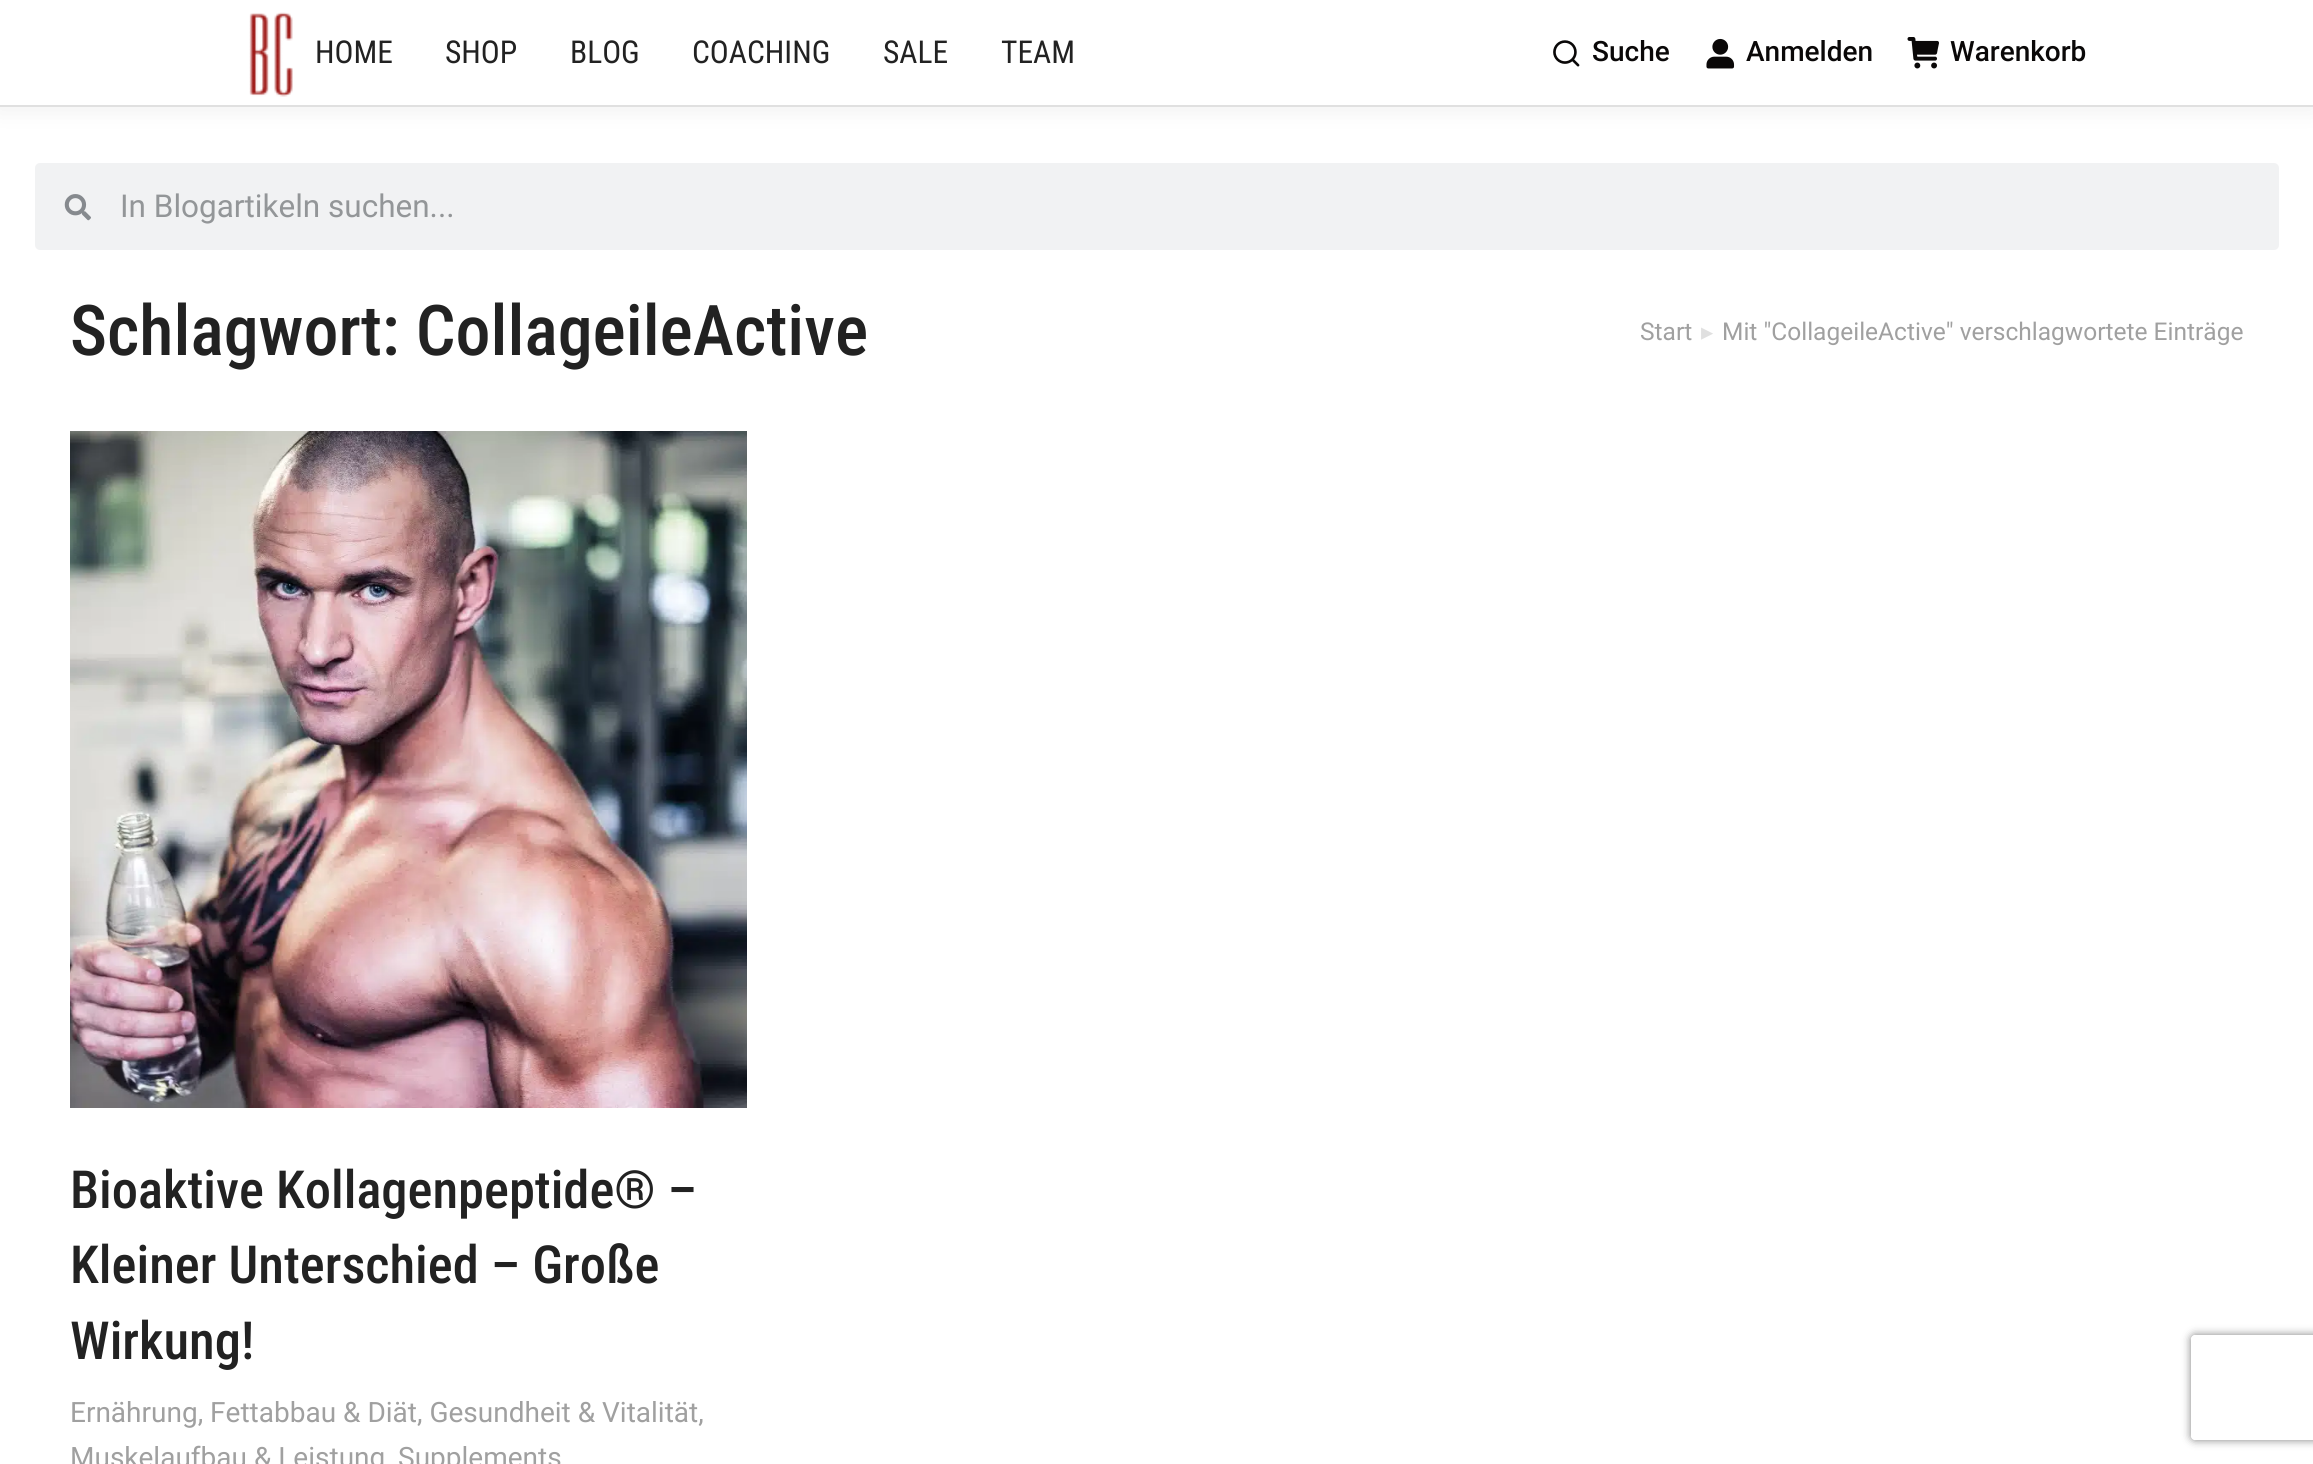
#include <cairo.h>
#include <math.h>
#include <stddef.h>

static cairo_t *c;
static void C(unsigned color){cairo_set_source_rgb(c, (color >> 16) / 255.0, (color >> 8 & 255) / 255.0, (color & 255) / 255.0);}
static void F(const char *family, double size, int italic, int bold){cairo_select_font_face(c, family, italic ? CAIRO_FONT_SLANT_ITALIC : CAIRO_FONT_SLANT_NORMAL,bold ? CAIRO_FONT_WEIGHT_BOLD : CAIRO_FONT_WEIGHT_NORMAL);cairo_set_font_size(c, size);}
static void T(double x, double y, const char *s){cairo_move_to(c, x, y);cairo_show_text(c, s);}
static void R(double x, double y, double w, double h){cairo_rectangle(c, x, y, w, h);cairo_fill(c);}
static void Q(double x, double y, double w, double h, double r){cairo_new_sub_path(c);cairo_arc(c, x + w - r, y + h - r, r, 0, M_PI / 2);cairo_arc(c, x + r, y + h - r, r, M_PI / 2, M_PI);cairo_arc(c, x + r, y + r, r, M_PI, 1.5 * M_PI);cairo_arc(c, x + w - r, y + r, r, 1.5 * M_PI, 2 * M_PI);cairo_close_path(c);}
static void S(double x, double y, double w, double h, double r, double blur, double alpha){cairo_push_group_with_content(c, CAIRO_CONTENT_ALPHA);cairo_set_operator(c, CAIRO_OPERATOR_SOURCE);for (int i = 15; i >= -15 && fmin(w, h) + blur * i / 3 > 0; i -= 2) {double e = blur * i / 6;cairo_set_source_rgba(c, 0, 0, 0, alpha * erfc((i - 1) / 8.5) / 2);Q(x - e, y - e, w + 2 * e, h + 2 * e, fmax(0, fmin(r + e + blur * .6, fmin(w, h) / 2 + e)));cairo_fill(c);}cairo_pattern_t *soft = cairo_pop_group(c);cairo_mask(c, soft);cairo_pattern_destroy(soft);}
static void I(const char *path, double x, double y, double w, double h){cairo_surface_t *image = cairo_image_surface_create_from_png(path);cairo_save(c);cairo_set_source_surface(c, image, x, y);cairo_rectangle(c, x, y, w, h);cairo_fill(c);cairo_restore(c);cairo_surface_destroy(image);}
int main(void) {
cairo_surface_t *surface = cairo_image_surface_create(CAIRO_FORMAT_RGB24, 2313, 1464);
c = cairo_create(surface);
cairo_font_options_t *options = cairo_font_options_create();
cairo_font_options_set_hint_metrics(options, CAIRO_HINT_METRICS_OFF);
cairo_font_options_set_hint_style(options, CAIRO_HINT_STYLE_NONE);
cairo_set_font_options(c, options);
cairo_set_miter_limit(c, 4);
C(0xffffff);
cairo_paint(c);
C(0x000000);
S(-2,-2,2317,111,0,13,.07);
C(0xffffff);
R(0,0,2313,105);
C(0xe0e0e0);
R(0,105,2313,2);
I("1.png",249,12,44,85);
F("Roboto Condensed",31.5,0,0);
C(0x222222);
T(315,63,"HOME");
T(445,63,"SHOP");
T(570,63,"BLOG");
T(692,63,"COACHING");
T(883,63,"SALE");
T(1001,63,"TEAM");
I("2.png",1553,40,27,27);
F("Roboto Medium",28,0,0);
C(0x0a0808);
T(1592,61,"Suche");
I("3.png",1706,38,29,31);
T(1746,61,"Anmelden");
I("4.png",1907,37,32,32);
T(1950,61,"Warenkorb");
C(0xf1f2f3);
Q(35,163,2244,87,5);
cairo_fill(c);
I("5.png",64,194,27,27);
F("Roboto",31.5,0,0);
C(0x939698);
T(120,217,"In Blogartikeln suchen...");
F("Roboto Condensed Medium",70,0,0);
C(0x222222);
T(70,355,"Schlagwort: CollageileActive");
F("Roboto",24.5,0,0);
C(0xa0a0a0);
T(1640,340,"Start");
F("DejaVu Sans",24.5,0,0);
C(0xe0e0e0);
T(1701,340,"▸");
F("Roboto",24.5,0,0);
C(0xa0a0a0);
T(1722,340,"Mit \"CollageileActive\" verschlagwortete Einträge");
I("6.png",70,431,677,677);
F("Roboto Condensed Medium",52.5,0,0);
C(0x222222);
T(70,1208,"Bioaktive Kollagenpeptide® –");
T(70,1283,"Kleiner Unterschied – Große");
T(70,1359,"Wirkung!");
F("Roboto",28,0,0);
C(0xa0a0a0);
T(70,1422,"Ernährung, Fettabbau & Diät, Gesundheit & Vitalität,");
T(70,1467,"Muskelaufbau & Leistung");
T(398,1467,"Supplements");
cairo_save(c);
cairo_set_fill_rule(c,CAIRO_FILL_RULE_EVEN_ODD);
cairo_new_path(c);
cairo_move_to(c,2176,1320);
cairo_line_to(c,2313,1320);
cairo_line_to(c,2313,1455);
cairo_line_to(c,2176,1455);
cairo_close_path(c);
cairo_move_to(c,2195,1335);
cairo_line_to(c,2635,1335);
cairo_curve_to(c,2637,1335,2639,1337,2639,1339);
cairo_line_to(c,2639,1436);
cairo_curve_to(c,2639,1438,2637,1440,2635,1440);
cairo_line_to(c,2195,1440);
cairo_curve_to(c,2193,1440,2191,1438,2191,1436);
cairo_line_to(c,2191,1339);
cairo_curve_to(c,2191,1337,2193,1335,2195,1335);
cairo_close_path(c);
cairo_clip(c);
C(0x808080);
S(2191,1335,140,105,4,4.5,1);
cairo_restore(c);
cairo_surface_write_to_png(surface, "o.png");
cairo_font_options_destroy(options);
cairo_destroy(c);
cairo_surface_destroy(surface);
return 0;
}
